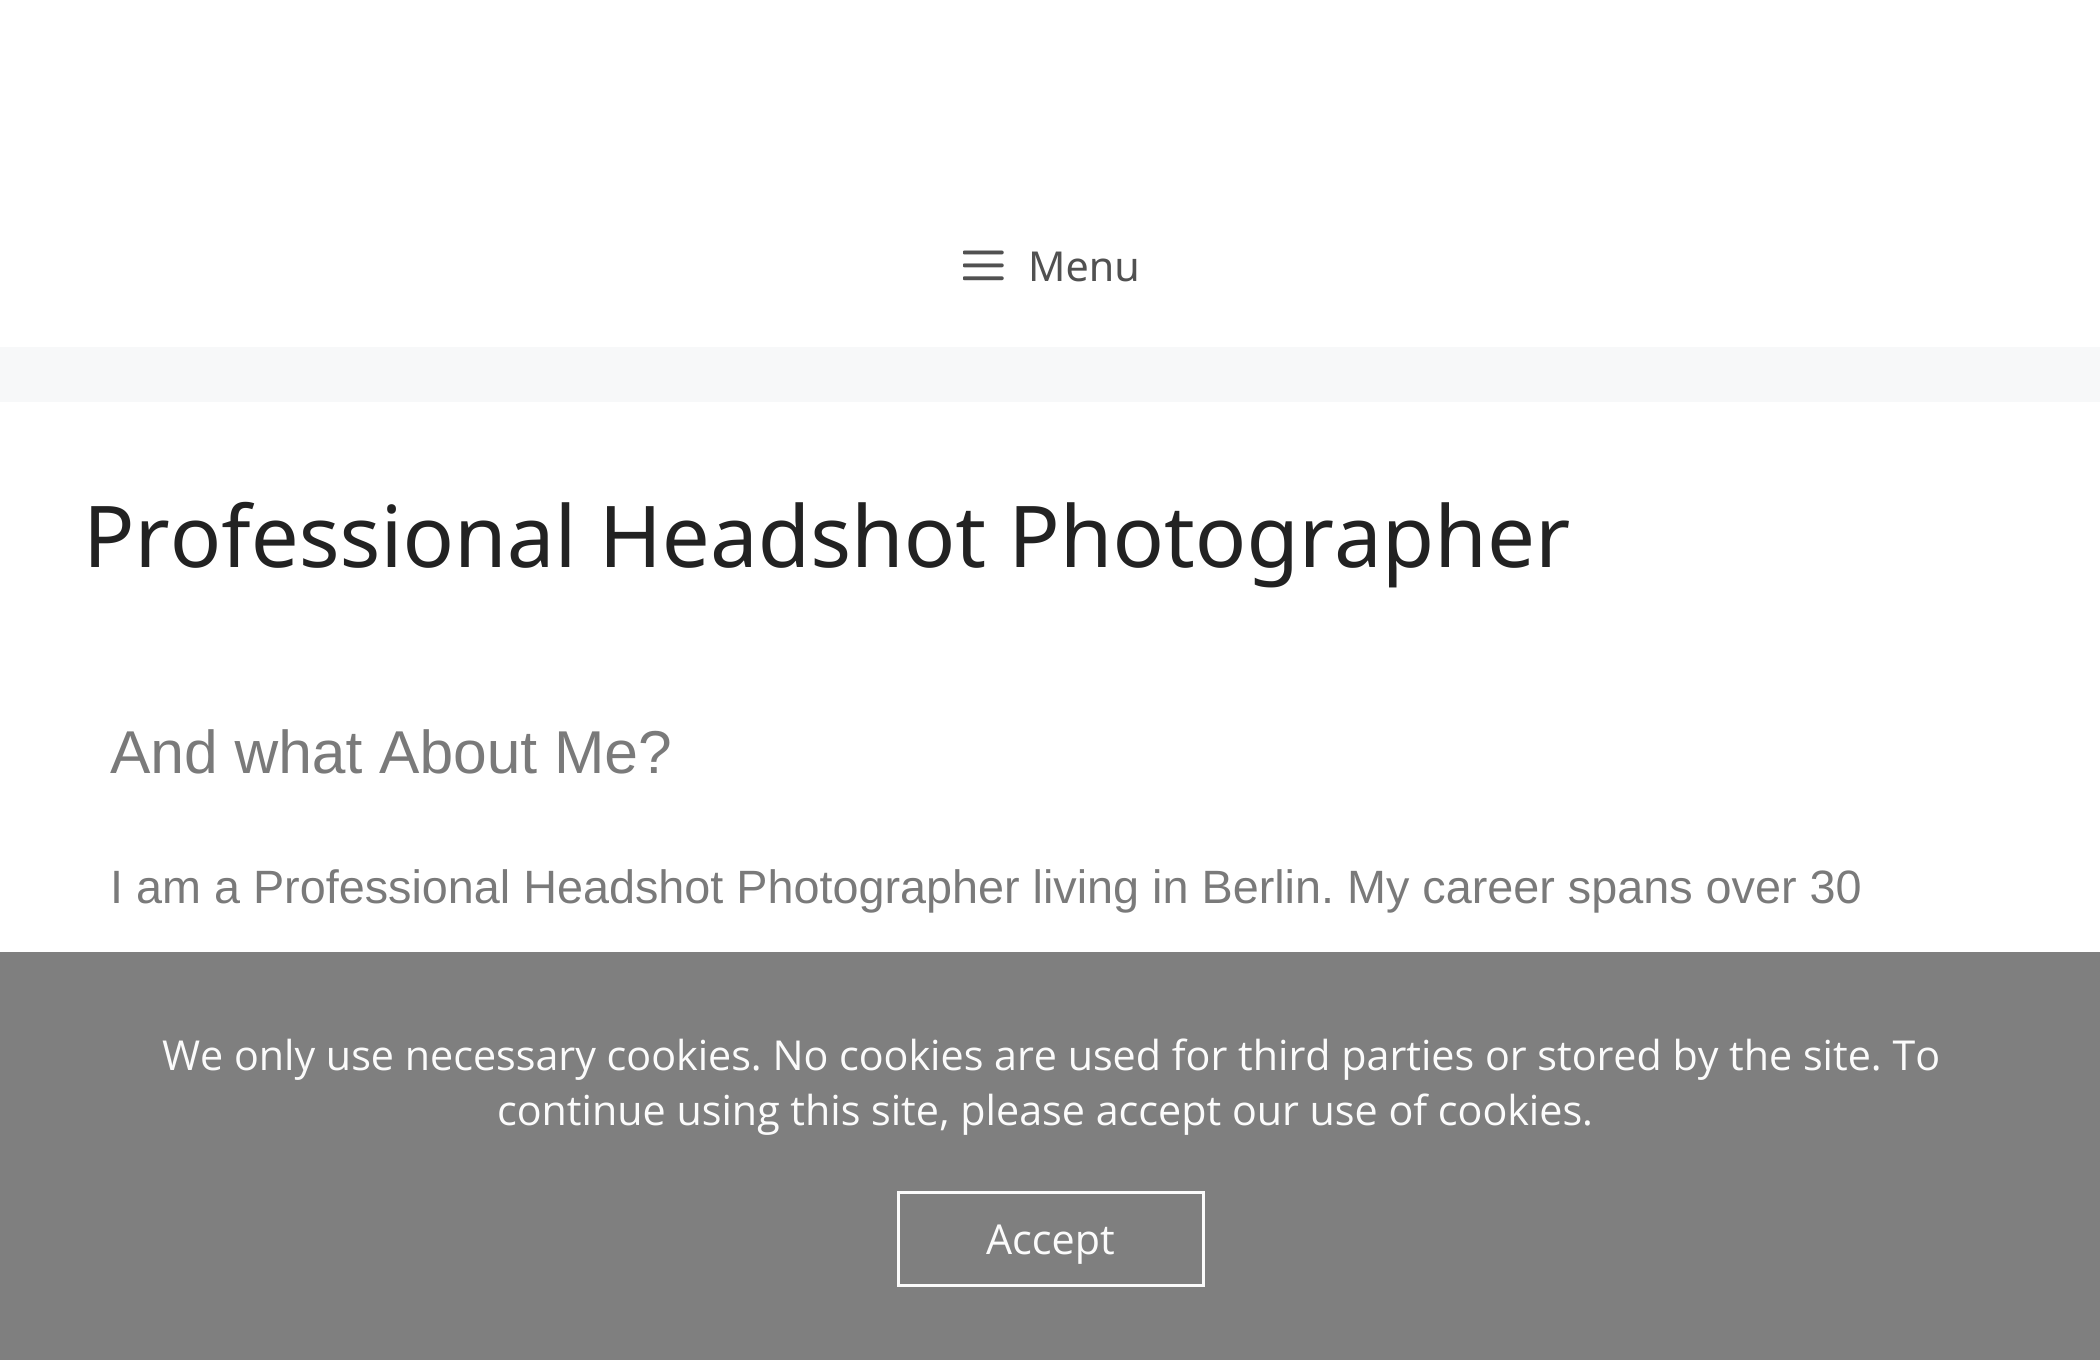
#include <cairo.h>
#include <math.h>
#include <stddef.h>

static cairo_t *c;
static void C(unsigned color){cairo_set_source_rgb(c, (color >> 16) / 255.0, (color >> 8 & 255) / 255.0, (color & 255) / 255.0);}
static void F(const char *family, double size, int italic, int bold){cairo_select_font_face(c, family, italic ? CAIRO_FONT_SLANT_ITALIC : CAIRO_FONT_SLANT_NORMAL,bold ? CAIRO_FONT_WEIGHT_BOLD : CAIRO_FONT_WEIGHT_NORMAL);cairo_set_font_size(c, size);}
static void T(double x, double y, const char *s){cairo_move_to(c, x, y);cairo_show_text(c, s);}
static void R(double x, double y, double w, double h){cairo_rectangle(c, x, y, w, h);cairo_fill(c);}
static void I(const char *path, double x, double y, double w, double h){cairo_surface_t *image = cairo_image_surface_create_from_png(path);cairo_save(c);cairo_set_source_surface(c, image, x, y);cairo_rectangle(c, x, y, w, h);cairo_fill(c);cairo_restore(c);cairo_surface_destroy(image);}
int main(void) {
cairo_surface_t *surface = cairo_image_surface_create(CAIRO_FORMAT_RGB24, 2100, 1360);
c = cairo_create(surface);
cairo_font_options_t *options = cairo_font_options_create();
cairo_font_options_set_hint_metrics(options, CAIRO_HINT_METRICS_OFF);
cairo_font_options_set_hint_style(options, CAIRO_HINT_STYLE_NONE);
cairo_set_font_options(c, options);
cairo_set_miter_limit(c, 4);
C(0xf7f8f9);
cairo_paint(c);
C(0xffffff);
R(0,0,2100,347);
I("1.png",963,250,41,31);
F("Noto Sans",41.25,0,0);
C(0x515151);
T(1028,281,"Menu");
C(0xffffff);
R(0,402,2100,958);
F("Noto Sans",85.25,0,0);
C(0x222222);
T(83,567,"Professional Headshot Photographer");
F("Liberation Sans",60.5,0,0);
C(0x7a7a7a);
T(110,773,"And what About Me?");
F("Liberation Sans",46.75,0,0);
T(110,903,"I am a Professional Headshot Photographer living in Berlin. My career spans over 30");
cairo_set_source_rgba(c,0.486,0.486,0.486,0.97);
R(0,952,2100,408);
F("Open Sans",41.25,0,0);
C(0xfbfbfb);
T(162,1070,"We only use necessary cookies. No cookies are used for third parties or stored by the site. To");
T(497,1125,"continue using this site, please accept our use of cookies.");
cairo_rectangle(c,898.5,1192.5,305,93);
cairo_set_source_rgba(c,1,1,1,0.97);
cairo_set_line_width(c,3);
cairo_stroke(c);
C(0xfbfbfb);
T(986,1254,"Accept");
cairo_surface_write_to_png(surface, "o.png");
cairo_font_options_destroy(options);
cairo_destroy(c);
cairo_surface_destroy(surface);
return 0;
}
